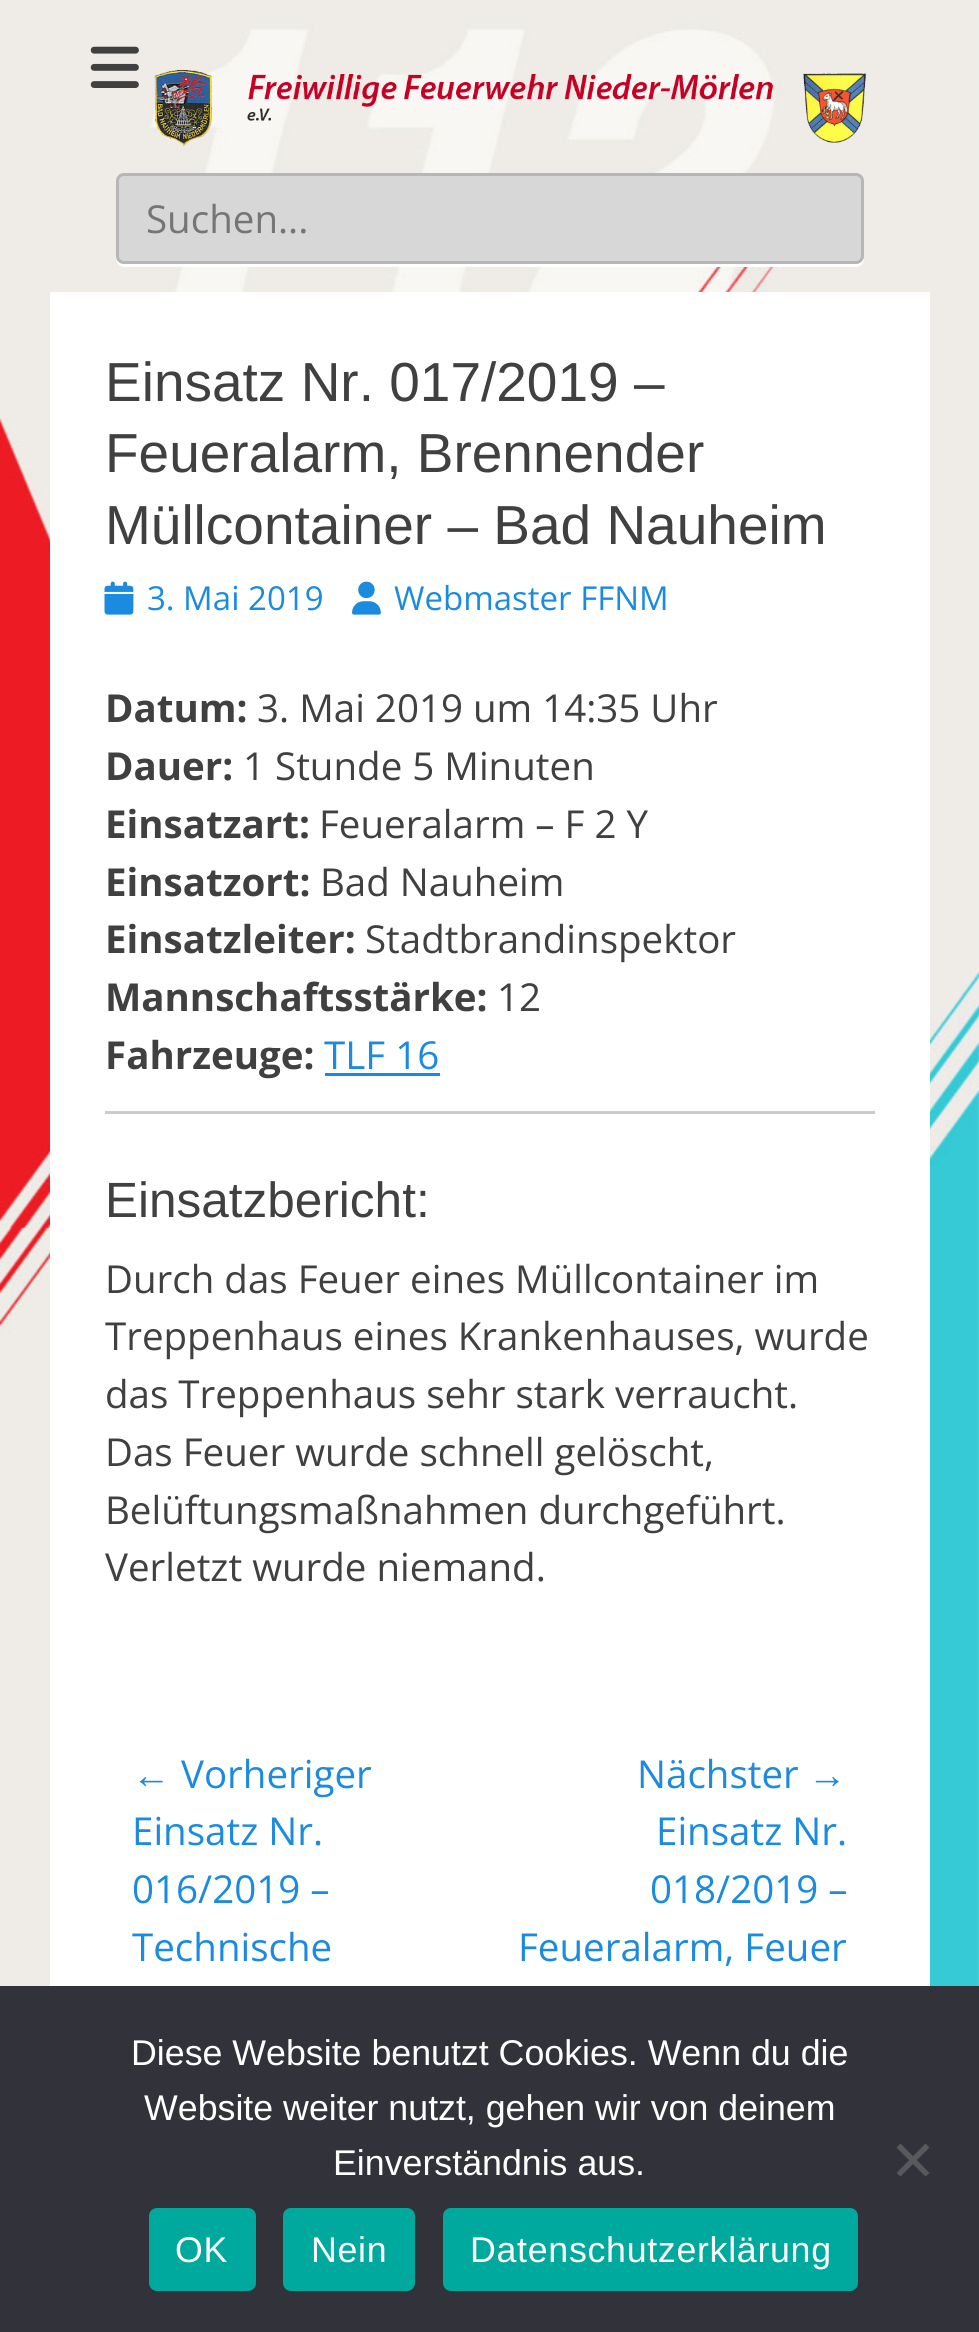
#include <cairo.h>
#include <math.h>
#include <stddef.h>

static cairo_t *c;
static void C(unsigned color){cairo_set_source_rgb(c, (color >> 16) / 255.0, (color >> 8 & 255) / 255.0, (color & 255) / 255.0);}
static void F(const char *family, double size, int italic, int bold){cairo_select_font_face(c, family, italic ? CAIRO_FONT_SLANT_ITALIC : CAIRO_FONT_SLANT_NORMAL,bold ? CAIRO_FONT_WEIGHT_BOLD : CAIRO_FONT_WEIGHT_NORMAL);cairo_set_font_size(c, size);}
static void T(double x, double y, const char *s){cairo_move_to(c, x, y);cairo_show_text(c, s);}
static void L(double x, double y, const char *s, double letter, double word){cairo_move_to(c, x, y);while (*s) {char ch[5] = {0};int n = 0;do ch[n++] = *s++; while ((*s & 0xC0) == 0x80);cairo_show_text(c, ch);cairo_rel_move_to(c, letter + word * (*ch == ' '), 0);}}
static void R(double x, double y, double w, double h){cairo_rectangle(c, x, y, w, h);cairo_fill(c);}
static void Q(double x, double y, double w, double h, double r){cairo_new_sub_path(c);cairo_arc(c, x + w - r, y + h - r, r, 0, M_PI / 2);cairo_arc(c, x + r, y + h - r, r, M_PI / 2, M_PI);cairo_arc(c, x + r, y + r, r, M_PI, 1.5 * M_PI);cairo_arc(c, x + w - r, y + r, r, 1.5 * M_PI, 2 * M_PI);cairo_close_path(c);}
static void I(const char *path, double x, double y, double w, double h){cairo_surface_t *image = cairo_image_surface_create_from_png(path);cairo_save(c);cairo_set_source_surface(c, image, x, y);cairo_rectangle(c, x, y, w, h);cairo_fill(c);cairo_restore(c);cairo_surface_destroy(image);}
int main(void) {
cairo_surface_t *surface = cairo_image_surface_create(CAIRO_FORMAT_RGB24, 979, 2332);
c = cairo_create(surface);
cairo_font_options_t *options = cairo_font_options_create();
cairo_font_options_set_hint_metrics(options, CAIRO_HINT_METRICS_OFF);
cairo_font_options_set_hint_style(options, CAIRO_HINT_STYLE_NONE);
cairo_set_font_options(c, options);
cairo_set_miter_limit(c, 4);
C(0xffffff);
cairo_paint(c);
I("1.png",0,0,979,1986);
I("2.png",90,46,49,42);
I("3.png",154,69,713,77);
C(0xffffff);
cairo_new_path(c);
cairo_move_to(c,116,259);
cairo_curve_to(c,116,263,120,267,124,267);
cairo_line_to(c,856,267);
cairo_curve_to(c,860,267,864,263,864,259);
cairo_line_to(c,864,184);
cairo_line_to(c,863,181);
cairo_line_to(c,864,256);
cairo_curve_to(c,864,260,860,264,855,264);
cairo_line_to(c,124,264);
cairo_curve_to(c,120,264,117,262,116,259);
cairo_close_path(c);
cairo_fill(c);
C(0xd7d7d7);
Q(117.5,174.5,745,88,6.5);
cairo_fill_preserve(c);
C(0xb6b6b6);
cairo_set_line_width(c,3);
cairo_stroke(c);
F("Open Sans",38.5,0,0);
C(0x757575);
T(146,233,"Suchen...");
C(0xffffff);
R(50,292,880,1694);
F("Liberation Sans",55,0,0);
C(0x404040);
T(105,401,"Einsatz Nr. 017/2019 –");
T(105,472,"Feueralarm, Brennender");
T(105,544,"Müllcontainer – Bad Nauheim");
I("4.png",104,581,30,34);
F("Open Sans",33,0,0);
C(0x1b8be0);
T(147,610,"3. Mai 2019");
I("5.png",352,581,29,34);
T(394,610,"Webmaster FFNM");
F("Open Sans",38.5,0,1);
C(0x404040);
T(105,722,"Datum:");
F("Open Sans",38.5,0,0);
T(257,722,"3. Mai 2019 um 14:35 Uhr");
F("Open Sans",38.5,0,1);
T(105,780,"Dauer:");
F("Open Sans",38.5,0,0);
T(243,780,"1 Stunde 5 Minuten");
F("Open Sans",38.5,0,1);
T(105,838,"Einsatzart:");
F("Open Sans",38.5,0,0);
T(319,838,"Feueralarm – F 2 Y");
F("Open Sans",38.5,0,1);
T(105,896,"Einsatzort:");
F("Open Sans",38.5,0,0);
T(320,896,"Bad Nauheim");
F("Open Sans",38.5,0,1);
T(105,953,"Einsatzleiter:");
F("Open Sans",38.5,0,0);
T(365,953,"Stadtbrandinspektor");
F("Open Sans",38.5,0,1);
T(105,1011,"Mannschaftsstärke:");
F("Open Sans",38.5,0,0);
T(497,1011,"12");
F("Open Sans",38.5,0,1);
T(105,1069,"Fahrzeuge:");
F("Open Sans",38.5,0,0);
C(0x1b8be0);
T(324,1069,"TLF 16");
R(325,1073,115,3);
C(0xcccccc);
R(105,1111,770,3);
F("Liberation Sans",49.5,0,0);
C(0x404040);
T(105,1217,"Einsatzbericht:");
F("Open Sans",38.5,0,0);
T(105,1293,"Durch das Feuer eines Müllcontainer im");
T(105,1350,"Treppenhaus eines Krankenhauses, wurde");
T(105,1408,"das Treppenhaus sehr stark verraucht.");
T(105,1466,"Das Feuer wurde schnell gelöscht,");
T(105,1524,"Belüftungsmaßnahmen durchgeführt.");
T(105,1581,"Verletzt wurde niemand.");
F("Liberation Sans",38.5,0,0);
C(0x1b8be0);
T(132,1788,"←");
F("Open Sans",38.5,0,0);
T(181,1788,"Vorheriger");
T(132,1845,"Einsatz Nr.");
T(132,1903,"016/2019 –");
T(132,1961,"Technische");
T(637,1788,"Nächster");
F("Liberation Sans",38.5,0,0);
T(808,1788,"→");
F("Open Sans",38.5,0,0);
T(656,1845,"Einsatz Nr.");
T(650,1903,"018/2019 –");
T(518,1961,"Feueralarm, Feuer");
C(0x32323a);
R(0,1986,979,346);
F("Liberation Sans",35.75,0,0);
C(0xffffff);
T(131,2065,"Diese Website benutzt Cookies. Wenn du die");
T(144,2120,"Website weiter nutzt, gehen wir von deinem");
T(333,2175,"Einverständnis aus.");
C(0x59595d);
cairo_new_path(c);
cairo_move_to(c,925.5,2143.5);
cairo_line_to(c,929.5,2147.5);
cairo_line_to(c,900.5,2176.5);
cairo_line_to(c,896.5,2173);
cairo_close_path(c);
cairo_fill(c);
cairo_new_path(c);
cairo_move_to(c,896.5,2147.5);
cairo_line_to(c,900.5,2143.5);
cairo_line_to(c,929.5,2173);
cairo_line_to(c,925.5,2176.5);
cairo_close_path(c);
cairo_fill(c);
C(0x00a99d);
Q(149,2208,107,83,8);
cairo_fill(c);
C(0xffffff);
L(175,2262,"OK",.7,0);
C(0x00a99d);
Q(283,2208,132,83,8);
cairo_fill(c);
C(0xffffff);
L(311,2262,"Nein",.7,0);
C(0x00a99d);
Q(443,2208,415,83,8);
cairo_fill(c);
C(0xffffff);
L(470,2262,"Datenschutzerklärung",.7,0);
cairo_surface_write_to_png(surface, "o.png");
cairo_font_options_destroy(options);
cairo_destroy(c);
cairo_surface_destroy(surface);
return 0;
}
